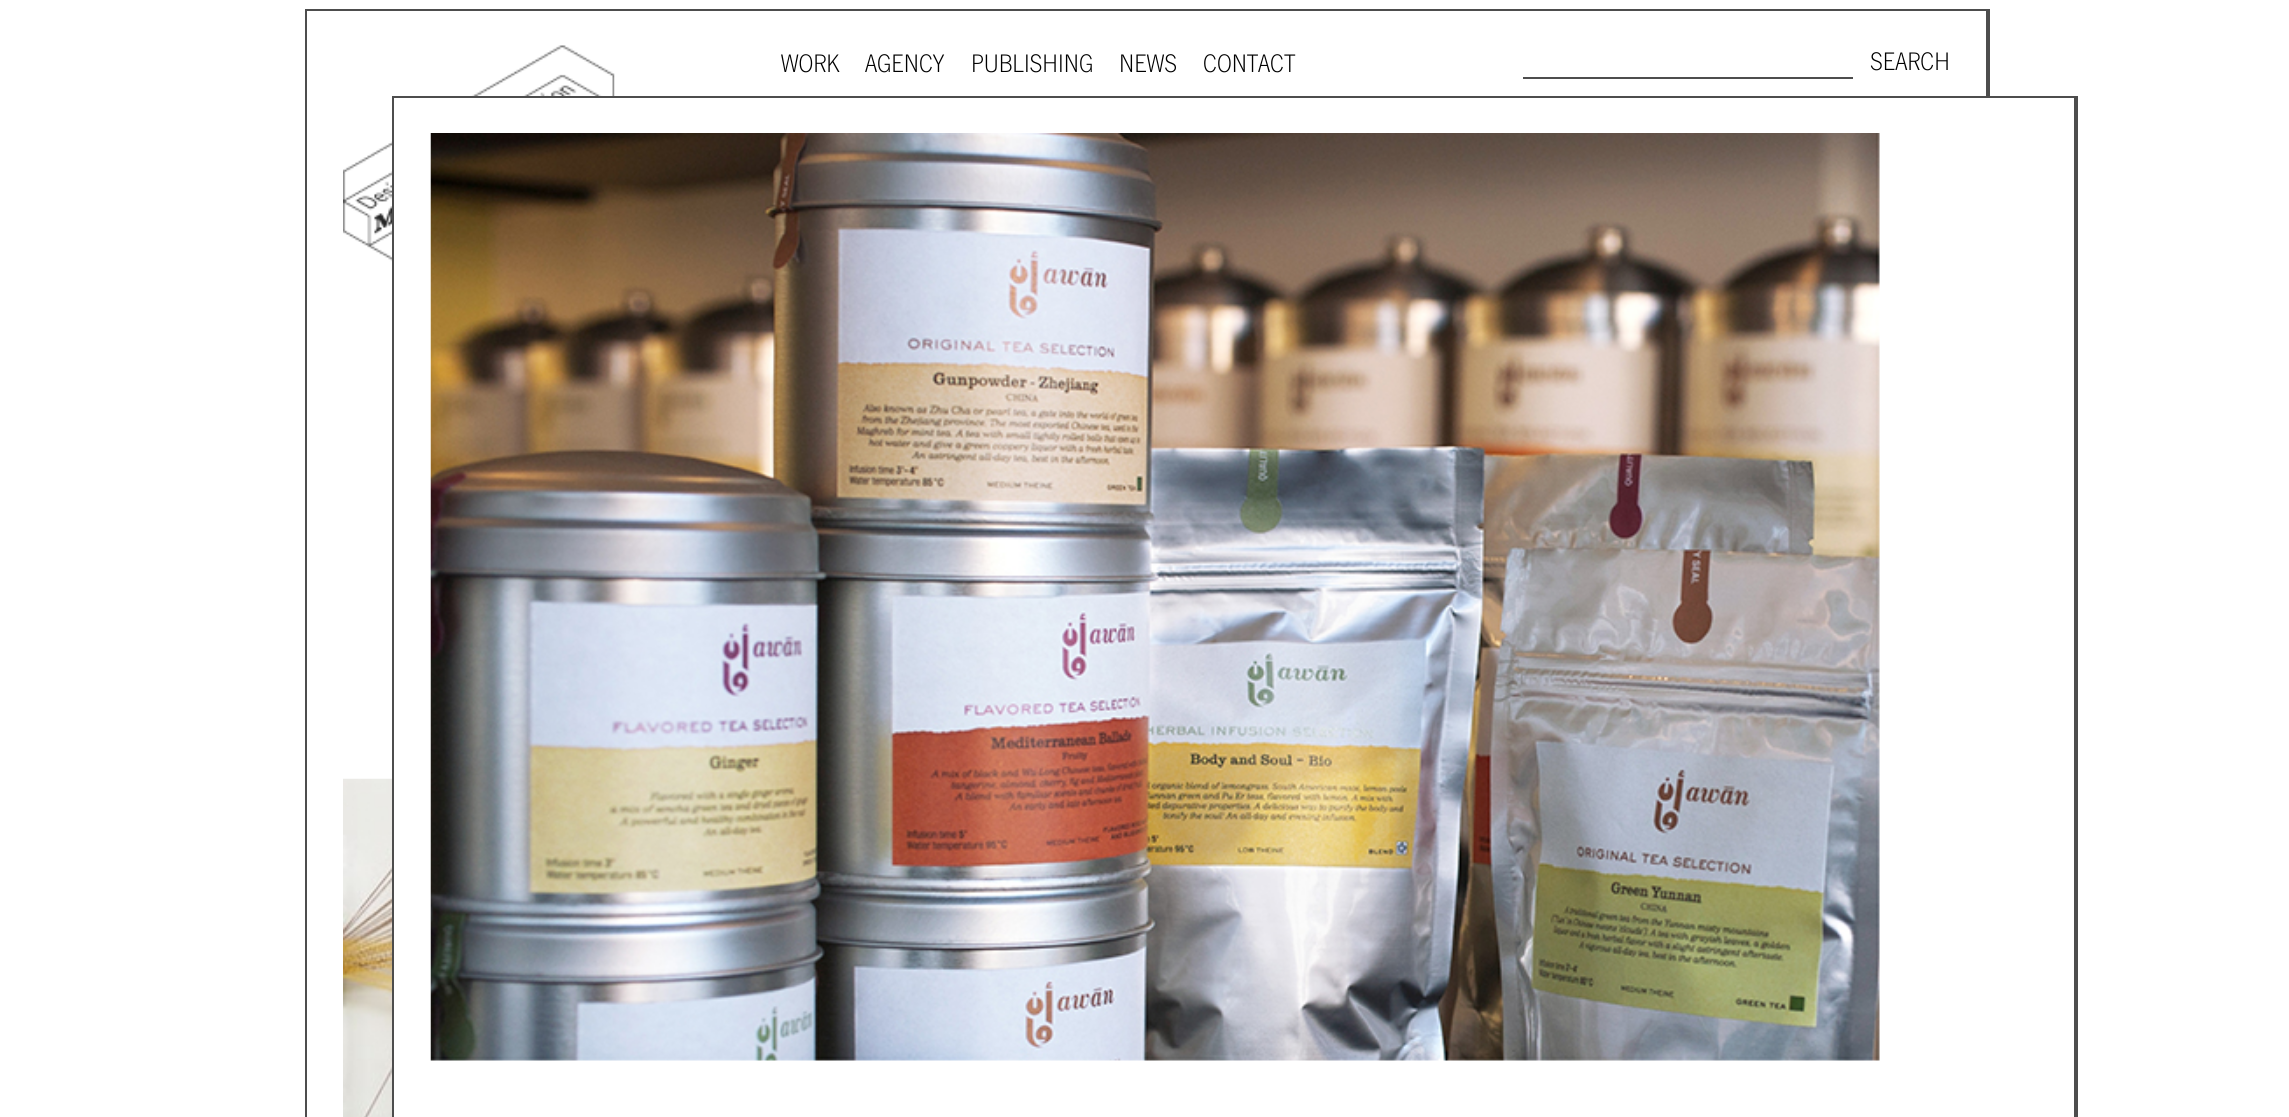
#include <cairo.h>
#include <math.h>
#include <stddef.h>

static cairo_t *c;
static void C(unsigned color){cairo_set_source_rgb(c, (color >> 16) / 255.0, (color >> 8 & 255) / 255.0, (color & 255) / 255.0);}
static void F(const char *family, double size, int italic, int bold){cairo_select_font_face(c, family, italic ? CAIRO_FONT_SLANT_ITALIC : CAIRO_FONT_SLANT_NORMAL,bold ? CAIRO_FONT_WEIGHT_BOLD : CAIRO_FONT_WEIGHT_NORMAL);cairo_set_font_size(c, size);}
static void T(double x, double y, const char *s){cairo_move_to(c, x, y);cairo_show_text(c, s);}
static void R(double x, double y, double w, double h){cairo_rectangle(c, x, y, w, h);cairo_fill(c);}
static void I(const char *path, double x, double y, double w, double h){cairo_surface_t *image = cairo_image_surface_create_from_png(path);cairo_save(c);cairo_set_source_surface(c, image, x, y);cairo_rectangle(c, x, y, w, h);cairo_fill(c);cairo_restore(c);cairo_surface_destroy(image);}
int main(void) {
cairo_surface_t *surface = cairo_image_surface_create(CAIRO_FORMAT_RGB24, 2289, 1117);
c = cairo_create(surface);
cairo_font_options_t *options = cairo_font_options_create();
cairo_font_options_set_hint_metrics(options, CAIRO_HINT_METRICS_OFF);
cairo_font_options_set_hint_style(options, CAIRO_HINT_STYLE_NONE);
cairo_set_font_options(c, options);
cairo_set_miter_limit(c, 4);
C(0xffffff);
cairo_paint(c);
C(0x4d4d4d);
R(305,9,1685,2);
R(1986,9,4,87);
R(305,9,2,1108);
I("1.png",343,45,272,217);
F("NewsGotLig",26.25,0,0);
C(0x000000);
T(781,72,"WORK");
T(865,72,"AGENCY");
T(971,72,"PUBLISHING");
T(1119,72,"NEWS");
T(1203,72,"CONTACT");
T(1870,70,"SEARCH");
C(0x4d4d4d);
R(1523,77,330,2);
I("2.png",343,778,49,339);
C(0xffffff);
R(394,98,221,164);
C(0x4d4d4d);
R(392,96,1685,2);
R(2074,96,4,1021);
R(392,96,2,1021);
I("3.png",430,133,1450,928);
cairo_surface_write_to_png(surface, "o.png");
cairo_font_options_destroy(options);
cairo_destroy(c);
cairo_surface_destroy(surface);
return 0;
}
